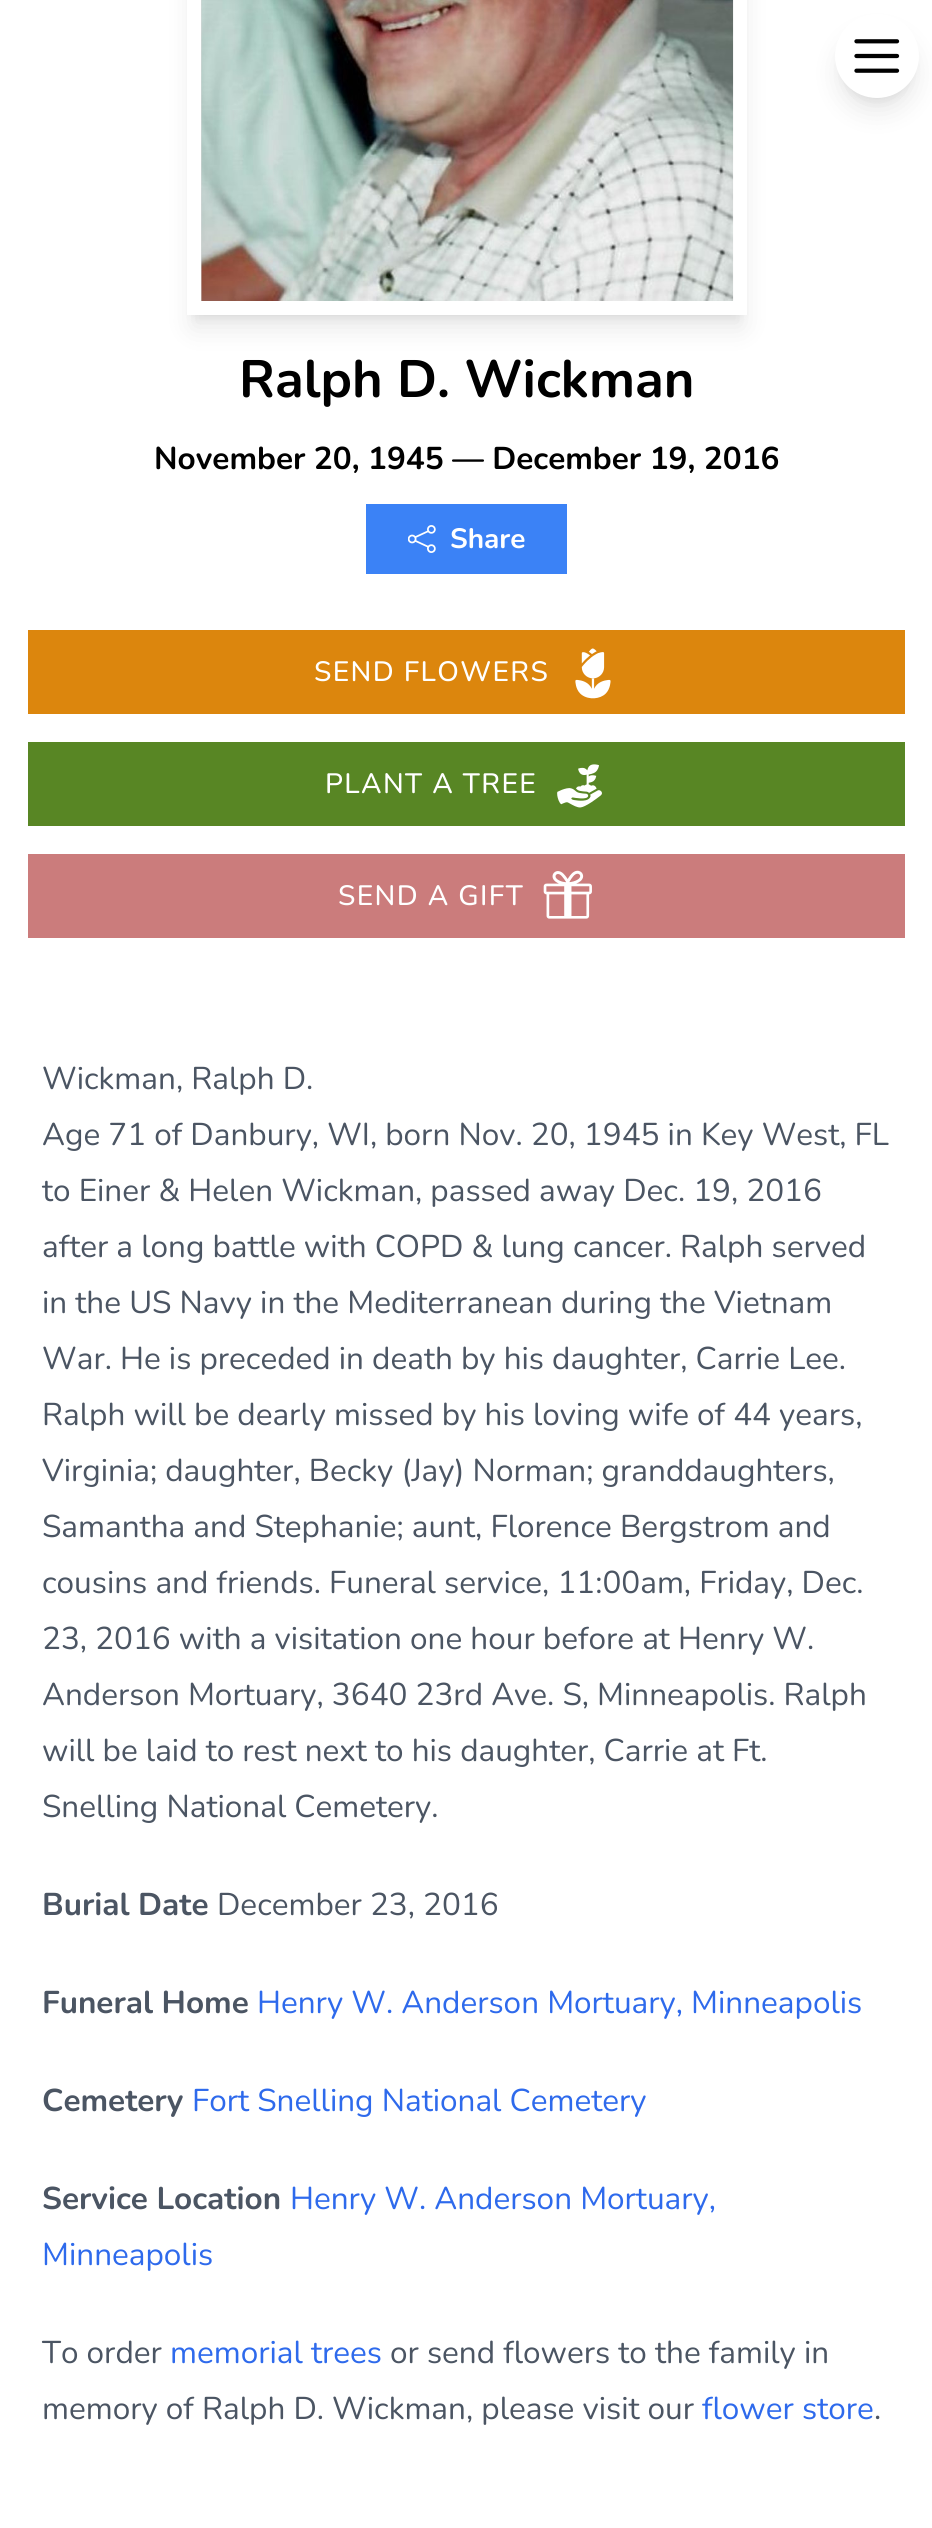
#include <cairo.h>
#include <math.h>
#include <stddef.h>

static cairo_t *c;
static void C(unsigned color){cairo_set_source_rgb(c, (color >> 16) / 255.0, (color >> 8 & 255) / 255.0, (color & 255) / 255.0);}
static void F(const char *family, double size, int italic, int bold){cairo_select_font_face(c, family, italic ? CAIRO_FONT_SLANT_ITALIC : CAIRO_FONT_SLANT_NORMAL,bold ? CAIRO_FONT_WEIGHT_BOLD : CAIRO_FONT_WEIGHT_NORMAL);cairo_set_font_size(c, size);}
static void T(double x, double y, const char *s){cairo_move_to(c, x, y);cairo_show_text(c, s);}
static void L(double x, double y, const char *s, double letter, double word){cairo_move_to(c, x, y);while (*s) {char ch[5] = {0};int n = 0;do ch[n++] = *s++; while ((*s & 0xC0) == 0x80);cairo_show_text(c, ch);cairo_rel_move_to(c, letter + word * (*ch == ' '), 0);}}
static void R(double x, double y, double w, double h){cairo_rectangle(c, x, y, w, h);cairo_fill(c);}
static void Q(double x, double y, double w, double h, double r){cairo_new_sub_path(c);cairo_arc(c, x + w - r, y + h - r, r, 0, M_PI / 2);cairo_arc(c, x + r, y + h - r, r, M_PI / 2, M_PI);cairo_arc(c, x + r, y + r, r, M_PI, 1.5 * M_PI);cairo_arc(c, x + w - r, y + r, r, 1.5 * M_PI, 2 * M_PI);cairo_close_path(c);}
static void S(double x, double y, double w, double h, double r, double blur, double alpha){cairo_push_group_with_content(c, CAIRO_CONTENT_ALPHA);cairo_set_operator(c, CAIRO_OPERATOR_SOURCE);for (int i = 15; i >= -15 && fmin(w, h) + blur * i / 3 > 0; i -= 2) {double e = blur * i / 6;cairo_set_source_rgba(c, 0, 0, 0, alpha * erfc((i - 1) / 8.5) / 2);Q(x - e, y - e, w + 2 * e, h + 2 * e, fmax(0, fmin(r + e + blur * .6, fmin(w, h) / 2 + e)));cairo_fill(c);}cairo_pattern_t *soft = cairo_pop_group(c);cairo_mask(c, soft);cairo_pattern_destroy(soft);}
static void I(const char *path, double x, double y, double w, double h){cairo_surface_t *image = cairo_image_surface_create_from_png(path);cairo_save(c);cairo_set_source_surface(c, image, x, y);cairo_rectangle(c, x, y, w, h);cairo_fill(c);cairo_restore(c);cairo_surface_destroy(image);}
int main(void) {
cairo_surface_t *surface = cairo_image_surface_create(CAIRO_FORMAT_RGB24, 932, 2528);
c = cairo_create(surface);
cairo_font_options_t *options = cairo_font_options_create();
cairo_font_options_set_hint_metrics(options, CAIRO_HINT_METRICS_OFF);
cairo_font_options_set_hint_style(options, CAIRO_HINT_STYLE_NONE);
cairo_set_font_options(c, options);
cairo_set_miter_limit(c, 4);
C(0xffffff);
cairo_paint(c);
C(0x000000);
S(842,28,70,70,35,5,.1);
S(840,37,74,73,36.5,13,.1);
C(0xffffff);
cairo_arc(c,877,56,42,0,2 * M_PI);
cairo_fill(c);
I("1.png",854,39,46,34);
C(0x000000);
S(194,-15,546,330,0,5,.1);
S(193,-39,549,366,0,13,.1);
cairo_rectangle(c,194,-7,546,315);
C(0xffffff);
cairo_set_line_width(c,14);
cairo_stroke(c);
I("2.png",201,0,533,301);
F("Nunito",52.5,0,1);
C(0x000000);
T(239,397,"Ralph D. Wickman");
F("Nunito",31.5,0,1);
T(154,469,"November 20, 1945 — December 19, 2016");
C(0x3b82f6);
R(366,504,201,70);
I("3.png",408,525,28,28);
F("Nunito",28,0,1);
C(0xffffff);
T(450,548,"Share");
C(0xdc860d);
R(28,630,877,84);
F("Nunito Medium",28,0,0);
C(0xffffff);
L(314,681,"SEND FLOWERS",1.4,0);
I("4.png",575,648,36,51);
C(0x588624);
R(28,742,877,84);
C(0xffffff);
L(325,793,"PLANT A TREE",1.4,0);
I("5.png",557,764,45,44);
C(0xcb7c7c);
R(28,854,877,84);
C(0xffffff);
L(338,905,"SEND A GIFT",1.4,0);
I("6.png",543,870,49,49);
F("Nunito",31.5,0,0);
C(0x4b5563);
T(42,1089,"Wickman, Ralph D.");
T(42,1145,"Age 71 of Danbury, WI, born Nov. 20, 1945 in Key West, FL");
T(42,1201,"to Einer & Helen Wickman, passed away Dec. 19, 2016");
T(42,1257,"after a long battle with COPD & lung cancer. Ralph served");
T(42,1313,"in the US Navy in the Mediterranean during the Vietnam");
T(42,1369,"War. He is preceded in death by his daughter, Carrie Lee.");
T(42,1425,"Ralph will be dearly missed by his loving wife of 44 years,");
T(42,1481,"Virginia; daughter, Becky (Jay) Norman; granddaughters,");
T(42,1537,"Samantha and Stephanie; aunt, Florence Bergstrom and");
T(42,1593,"cousins and friends. Funeral service, 11:00am, Friday, Dec.");
T(42,1649,"23, 2016 with a visitation one hour before at Henry W.");
T(42,1705,"Anderson Mortuary, 3640 23rd Ave. S, Minneapolis. Ralph");
T(42,1761,"will be laid to rest next to his daughter, Carrie at Ft.");
T(42,1817,"Snelling National Cemetery.");
F("Nunito",31.5,0,1);
T(42,1915,"Burial Date");
F("Nunito",31.5,0,0);
T(217,1915,"December 23, 2016");
F("Nunito",31.5,0,1);
T(42,2013,"Funeral Home");
F("Nunito",31.5,0,0);
C(0x2e6aec);
T(257,2013,"Henry W. Anderson Mortuary, Minneapolis");
F("Nunito",31.5,0,1);
C(0x4b5563);
T(42,2111,"Cemetery");
F("Nunito",31.5,0,0);
C(0x2e6aec);
T(192,2111,"Fort Snelling National Cemetery");
F("Nunito",31.5,0,1);
C(0x4b5563);
T(42,2209,"Service Location");
F("Nunito",31.5,0,0);
C(0x2e6aec);
T(290,2209,"Henry W. Anderson Mortuary,");
T(42,2265,"Minneapolis");
C(0x4b5563);
T(42,2363,"To order");
C(0x2e6aec);
T(170,2363,"memorial trees");
C(0x4b5563);
T(390,2363,"or send flowers to the family in");
T(42,2419,"memory of Ralph D. Wickman, please visit our");
C(0x2e6aec);
T(702,2419,"flower store");
C(0x4b5563);
T(874,2419,".");
cairo_surface_write_to_png(surface, "o.png");
cairo_font_options_destroy(options);
cairo_destroy(c);
cairo_surface_destroy(surface);
return 0;
}
